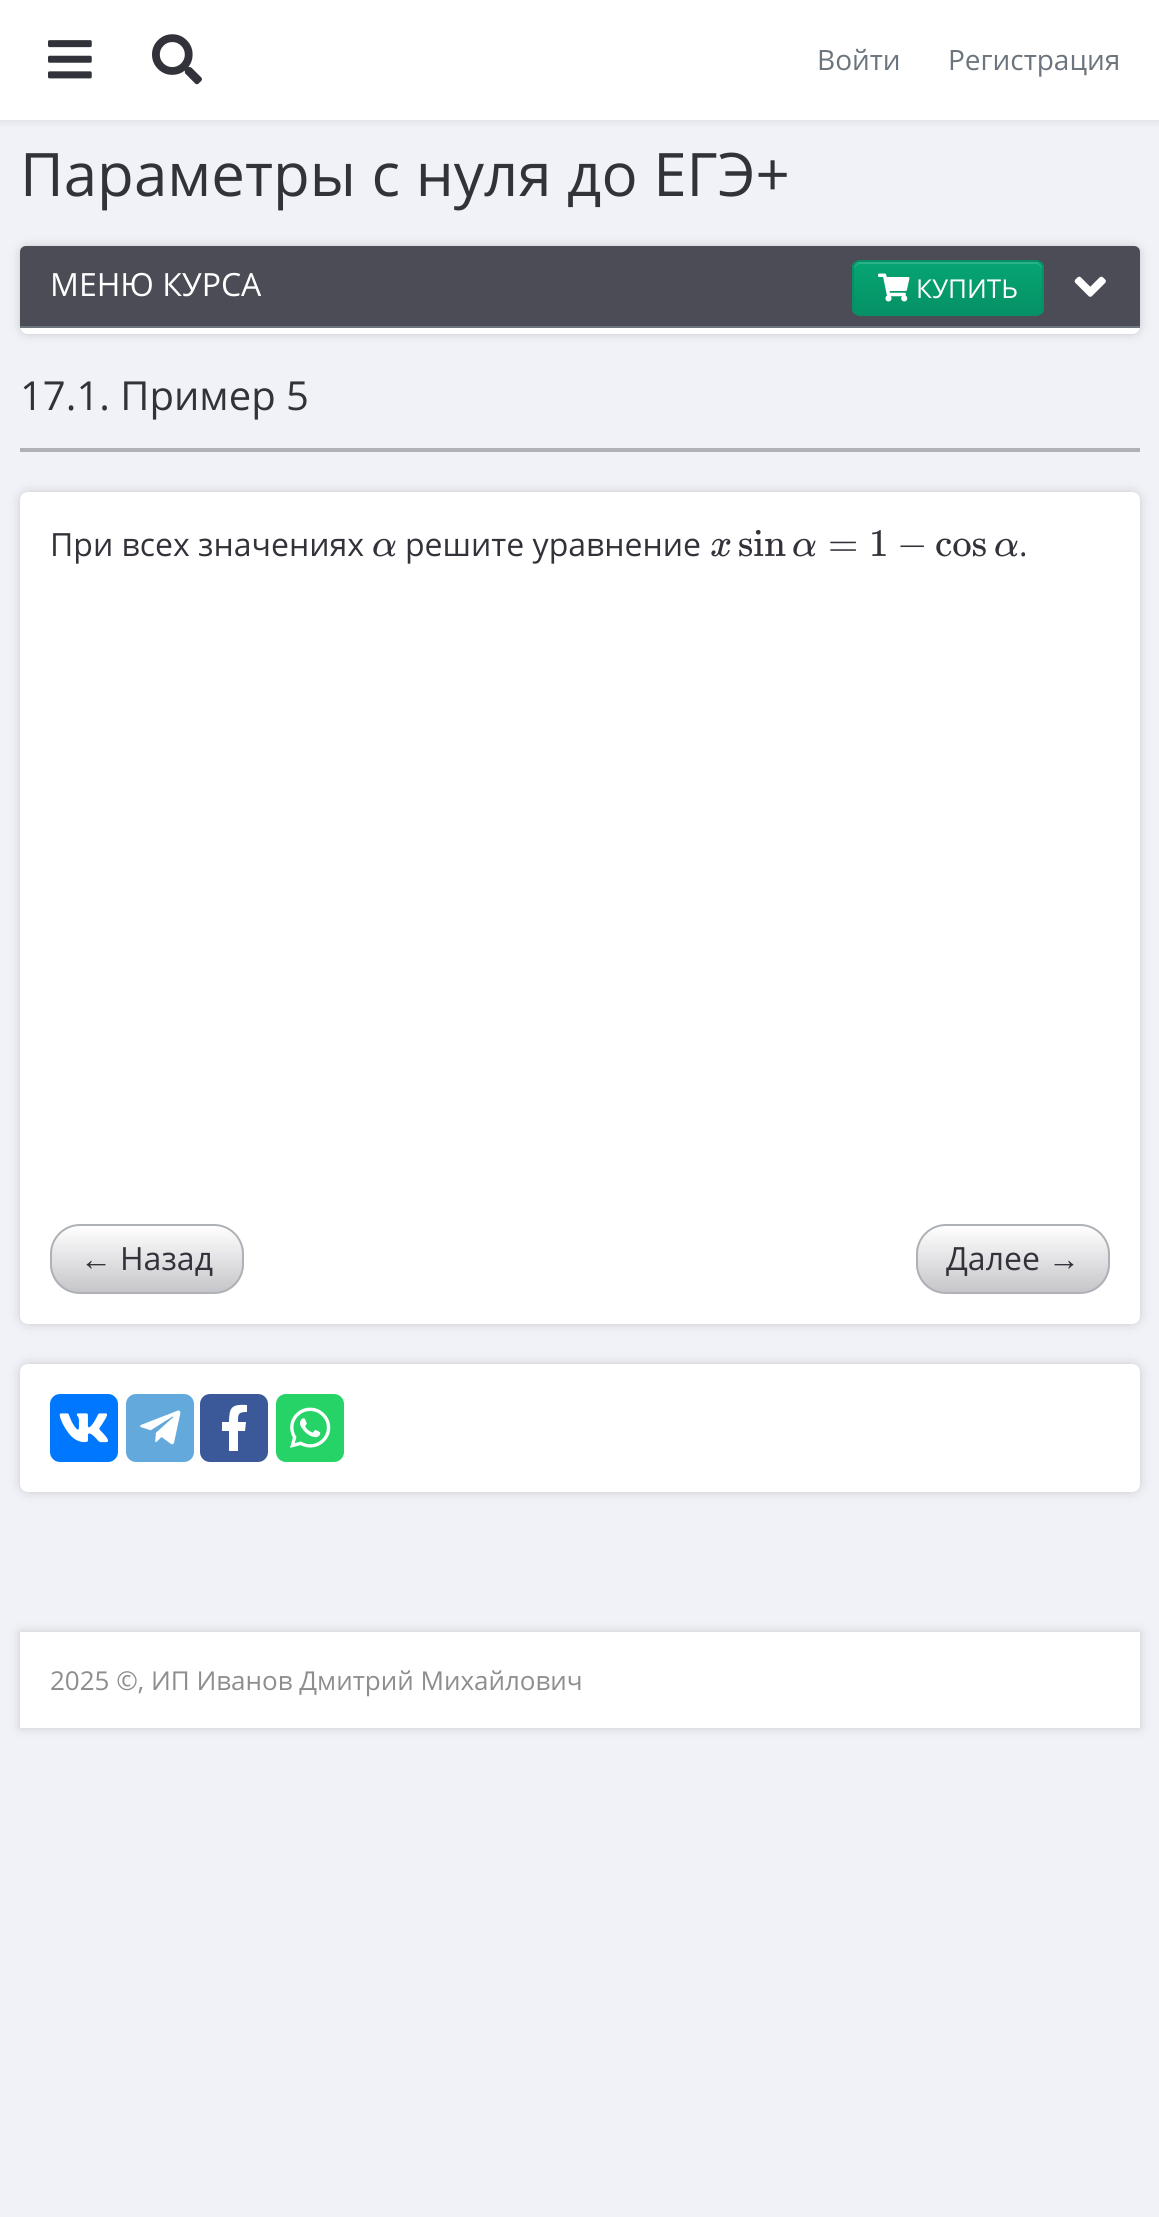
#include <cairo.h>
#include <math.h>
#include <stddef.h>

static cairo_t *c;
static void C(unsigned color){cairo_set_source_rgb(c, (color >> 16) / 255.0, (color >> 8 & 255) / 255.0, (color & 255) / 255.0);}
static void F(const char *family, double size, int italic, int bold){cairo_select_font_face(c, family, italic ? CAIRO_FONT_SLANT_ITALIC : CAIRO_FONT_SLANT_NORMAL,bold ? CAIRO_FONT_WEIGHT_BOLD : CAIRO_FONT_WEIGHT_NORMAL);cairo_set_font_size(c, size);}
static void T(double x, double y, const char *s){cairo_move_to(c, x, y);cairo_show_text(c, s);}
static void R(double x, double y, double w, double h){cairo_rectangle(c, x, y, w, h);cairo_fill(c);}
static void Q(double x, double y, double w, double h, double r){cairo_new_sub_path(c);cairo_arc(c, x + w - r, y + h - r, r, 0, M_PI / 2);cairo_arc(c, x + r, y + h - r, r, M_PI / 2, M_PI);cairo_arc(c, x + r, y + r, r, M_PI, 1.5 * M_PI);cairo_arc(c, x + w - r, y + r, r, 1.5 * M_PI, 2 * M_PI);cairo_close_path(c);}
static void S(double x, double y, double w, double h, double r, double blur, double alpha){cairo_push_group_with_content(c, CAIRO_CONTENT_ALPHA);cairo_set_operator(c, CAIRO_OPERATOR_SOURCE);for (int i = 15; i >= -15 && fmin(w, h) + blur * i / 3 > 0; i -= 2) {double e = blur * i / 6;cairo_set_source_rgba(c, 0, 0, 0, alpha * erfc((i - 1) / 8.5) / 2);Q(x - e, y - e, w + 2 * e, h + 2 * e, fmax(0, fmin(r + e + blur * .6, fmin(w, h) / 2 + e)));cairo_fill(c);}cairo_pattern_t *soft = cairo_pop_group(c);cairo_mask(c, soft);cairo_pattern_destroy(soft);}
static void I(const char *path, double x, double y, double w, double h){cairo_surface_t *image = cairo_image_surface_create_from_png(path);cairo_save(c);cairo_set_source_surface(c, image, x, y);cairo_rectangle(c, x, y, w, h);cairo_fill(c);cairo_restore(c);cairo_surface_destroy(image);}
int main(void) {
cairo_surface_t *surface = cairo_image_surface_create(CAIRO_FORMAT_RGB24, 1159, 2217);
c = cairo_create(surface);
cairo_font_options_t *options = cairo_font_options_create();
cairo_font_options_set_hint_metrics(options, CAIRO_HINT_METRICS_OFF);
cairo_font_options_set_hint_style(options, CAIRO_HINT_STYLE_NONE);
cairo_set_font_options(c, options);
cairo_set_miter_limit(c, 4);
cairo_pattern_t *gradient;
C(0xffffff);
cairo_paint(c);
C(0xf1f2f7);
R(0,120,1159,2097);
cairo_save(c);
cairo_rectangle(c,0,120,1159,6);
cairo_clip(c);
C(0x32323a);
S(0,0,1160,120,0,5,.15);
cairo_restore(c);
I("1.png",48,40,44,39);
I("2.png",152,34,50,51);
F("Open Sans",28,0,0);
C(0x6c757d);
T(817,70,"Войти");
T(948,70,"Регистрация");
F("Open Sans",60,0,0);
C(0x32323a);
T(20,196,"Параметры с нуля до ЕГЭ+");
C(0x212026);
S(20,246,1120,88,8,5,.2);
C(0xffffff);
Q(20,246,1120,88,8);
cairo_fill(c);
C(0x4c4c57);
cairo_new_path(c);
cairo_move_to(c,26,246);
cairo_line_to(c,1134,246);
cairo_curve_to(c,1137.5,246,1140,248.5,1140,252);
cairo_line_to(c,1140,328);
cairo_line_to(c,20,328);
cairo_line_to(c,20,252);
cairo_curve_to(c,20,248.5,22.5,246,26,246);
cairo_close_path(c);
cairo_fill(c);
C(0x6c757d);
R(20,326,1120,2);
F("Open Sans",32,0,0);
C(0xffffff);
T(50,296,"МЕНЮ КУРСА");
cairo_save(c);
Q(852,260,192,56,8);
cairo_clip(c);
gradient = cairo_pattern_create_linear(948,262,948,314);
cairo_pattern_add_color_stop_rgba(gradient,0,0.024,0.647,0.451,1);
cairo_pattern_add_color_stop_rgba(gradient,1,0.02,0.569,0.396,1);
cairo_set_source(c,gradient);
cairo_pattern_destroy(gradient);
R(852,262,192,52);
cairo_restore(c);
C(0x2bb288);
cairo_new_path(c);
cairo_move_to(c,860,264);
cairo_line_to(c,1036,264);
cairo_curve_to(c,1039,264,1042,267,1042,270);
cairo_line_to(c,1042,268);
cairo_curve_to(c,1042,265,1039,262,1036,262);
cairo_line_to(c,860,262);
cairo_curve_to(c,857,262,854,265,854,268);
cairo_line_to(c,854,270);
cairo_curve_to(c,854,267,857,264,860,264);
cairo_close_path(c);
cairo_fill(c);
Q(853,261,190,54,7);
C(0x059165);
cairo_stroke(c);
I("3.png",878,273,32,29);
F("Open Sans",26,0,0);
C(0xffffff);
T(916,298,"КУПИТЬ");
I("4.png",1074,276,32,21);
C(0xaeb2b7);
R(20,448,1120,4);
F("Open Sans",40,0,0);
C(0x32323a);
T(20,410,"17.1. Пример 5");
C(0x212026);
S(20,492,1120,832,8,5,.2);
C(0xffffff);
Q(20,492,1120,832,8);
cairo_fill(c);
F("Open Sans",32,0,0);
C(0x32323a);
T(50,556,"При всех значениях");
F("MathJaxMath",39,1,0);
T(372,556,"α");
F("Open Sans",32,0,0);
T(405,556,"решите уравнение");
F("MathJaxMath",39,1,0);
T(710,556,"x");
F("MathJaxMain",39,0,0);
T(738,556,"sin");
F("MathJaxMath",39,1,0);
T(792,556,"α");
F("MathJaxMain",39,0,0);
T(828,556,"=");
T(869,556,"1");
T(897,556,"−");
T(935,556,"cos");
F("MathJaxMath",39,1,0);
T(994,556,"α");
F("Open Sans",32,0,0);
T(1019,556,".");
cairo_save(c);
Q(50,1224,194,70,30);
cairo_clip(c);
gradient = cairo_pattern_create_linear(147,1226,147,1292);
cairo_pattern_add_color_stop_rgba(gradient,0,1,1,1,1);
cairo_pattern_add_color_stop_rgba(gradient,1,0.776,0.776,0.792,1);
cairo_set_source(c,gradient);
cairo_pattern_destroy(gradient);
R(50,1226,194,66);
cairo_restore(c);
Q(51,1225,192,68,29);
C(0xaeb2b7);
cairo_stroke(c);
F("Liberation Sans",32,0,0);
C(0x32323a);
T(80,1270,"←");
F("Open Sans",32,0,0);
T(120,1270,"Назад");
cairo_save(c);
Q(916,1224,194,70,30);
cairo_clip(c);
gradient = cairo_pattern_create_linear(1013,1226,1013,1292);
cairo_pattern_add_color_stop_rgba(gradient,0,1,1,1,1);
cairo_pattern_add_color_stop_rgba(gradient,1,0.776,0.776,0.792,1);
cairo_set_source(c,gradient);
cairo_pattern_destroy(gradient);
R(916,1226,194,66);
cairo_restore(c);
Q(917,1225,192,68,29);
C(0xaeb2b7);
cairo_stroke(c);
C(0x32323a);
T(946,1270,"Далее");
F("Liberation Sans",32,0,0);
T(1048,1270,"→");
C(0x212026);
S(20,1364,1120,128,8,5,.2);
C(0xffffff);
Q(20,1364,1120,128,8);
cairo_fill(c);
C(0x0077ff);
Q(50,1394,68,68,10);
cairo_fill(c);
I("5.png",59,1413,50,30);
C(0x64a9dc);
Q(126,1394,68,68,10);
cairo_fill(c);
I("6.png",140,1410,41,35);
C(0x3b5998);
Q(200,1394,68,68,10);
cairo_fill(c);
C(0xffffff);
cairo_new_path(c);
cairo_move_to(c,245,1431);
cairo_line_to(c,238,1431);
cairo_line_to(c,238,1451);
cairo_line_to(c,229,1451);
cairo_line_to(c,229,1431);
cairo_line_to(c,222,1431);
cairo_line_to(c,222,1422);
cairo_line_to(c,229,1422);
cairo_curve_to(c,229,1407,232,1404,247,1405);
cairo_line_to(c,247,1412);
cairo_curve_to(c,238,1412,238,1414,238,1422);
cairo_line_to(c,246,1422);
cairo_close_path(c);
cairo_fill(c);
C(0x25d366);
Q(276,1394,68,68,10);
cairo_fill(c);
I("7.png",290,1407,41,41);
C(0x212026);
S(20,1632,1120,96,0,5,.2);
C(0xffffff);
R(20,1632,1120,96);
F("Open Sans",26,0,0);
C(0x8f8e8e);
T(50,1690,"2025 ©, ИП Иванов Дмитрий Михайлович");
cairo_surface_write_to_png(surface, "o.png");
cairo_font_options_destroy(options);
cairo_destroy(c);
cairo_surface_destroy(surface);
return 0;
}
